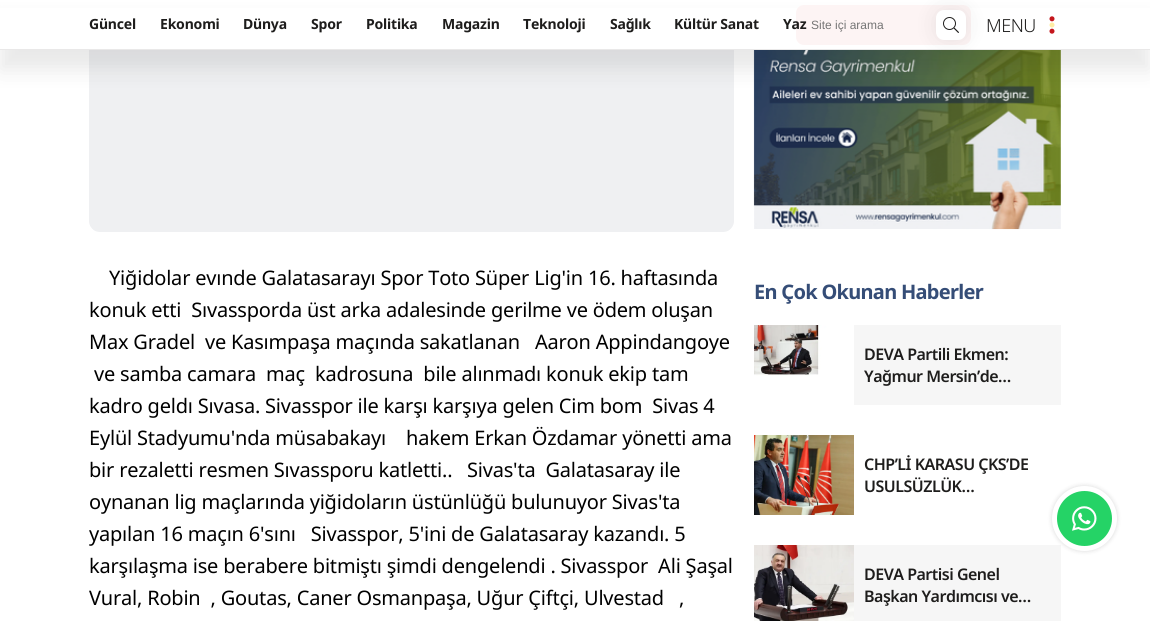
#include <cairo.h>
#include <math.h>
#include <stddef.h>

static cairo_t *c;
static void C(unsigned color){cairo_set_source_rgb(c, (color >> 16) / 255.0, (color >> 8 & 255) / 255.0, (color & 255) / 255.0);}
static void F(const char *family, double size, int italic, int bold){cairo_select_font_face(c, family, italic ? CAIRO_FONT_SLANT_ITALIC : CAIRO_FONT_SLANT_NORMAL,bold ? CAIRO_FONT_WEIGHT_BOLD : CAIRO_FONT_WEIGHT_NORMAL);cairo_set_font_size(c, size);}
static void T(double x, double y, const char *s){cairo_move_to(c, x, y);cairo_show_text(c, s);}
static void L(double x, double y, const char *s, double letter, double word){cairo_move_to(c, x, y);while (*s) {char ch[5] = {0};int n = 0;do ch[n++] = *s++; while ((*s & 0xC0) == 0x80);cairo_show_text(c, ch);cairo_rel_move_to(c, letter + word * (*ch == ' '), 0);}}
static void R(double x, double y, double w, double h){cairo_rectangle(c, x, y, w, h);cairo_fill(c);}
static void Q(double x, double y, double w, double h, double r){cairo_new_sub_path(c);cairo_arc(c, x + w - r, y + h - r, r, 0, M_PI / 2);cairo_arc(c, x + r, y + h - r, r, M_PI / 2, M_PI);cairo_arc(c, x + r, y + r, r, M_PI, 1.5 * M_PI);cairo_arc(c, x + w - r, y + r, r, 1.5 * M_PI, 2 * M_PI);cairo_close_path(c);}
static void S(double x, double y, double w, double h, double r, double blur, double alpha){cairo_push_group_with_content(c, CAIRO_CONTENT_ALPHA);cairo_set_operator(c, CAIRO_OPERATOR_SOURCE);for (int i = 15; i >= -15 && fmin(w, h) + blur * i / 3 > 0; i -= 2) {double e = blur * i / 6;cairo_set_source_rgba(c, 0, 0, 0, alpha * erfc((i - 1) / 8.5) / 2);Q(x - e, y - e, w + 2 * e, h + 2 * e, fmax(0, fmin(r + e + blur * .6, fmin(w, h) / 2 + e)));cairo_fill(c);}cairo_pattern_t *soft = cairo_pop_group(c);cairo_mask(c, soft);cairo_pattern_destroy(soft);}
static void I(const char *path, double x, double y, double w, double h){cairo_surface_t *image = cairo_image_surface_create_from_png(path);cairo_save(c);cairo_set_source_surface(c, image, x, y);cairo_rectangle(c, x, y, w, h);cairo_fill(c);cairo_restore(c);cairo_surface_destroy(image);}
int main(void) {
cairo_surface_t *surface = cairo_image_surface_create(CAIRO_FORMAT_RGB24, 1150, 621);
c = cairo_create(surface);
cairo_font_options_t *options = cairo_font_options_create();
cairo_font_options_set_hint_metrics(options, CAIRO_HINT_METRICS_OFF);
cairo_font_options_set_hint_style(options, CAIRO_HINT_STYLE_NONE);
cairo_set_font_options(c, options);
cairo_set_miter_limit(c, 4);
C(0xffffff);
cairo_paint(c);
I("3.png",89,50,645,182);
I("4.png",753,50,308,180);
C(0x1e1d1c);
S(0,20,1150,50,0,10,.1);
C(0xffffff);
R(0,8,1150,41);
C(0xe9e8e8);
R(0,49,1150,1);
F("Noto Sans",14,0,1);
C(0x1e1d1c);
L(89,29,"Güncel",-.2,0);
L(160,29,"Ekonomi",-.2,0);
L(243,29,"Dünya",-.2,0);
L(311,29,"Spor",-.2,0);
L(366,29,"Politika",-.2,0);
L(442,29,"Magazin",-.2,0);
L(523,29,"Teknoloji",-.2,0);
L(610,29,"Sağlık",-.2,0);
L(674,29,"Kültür Sanat",-.2,0);
C(0xfdf4f4);
Q(796,5,175,40,8);
cairo_fill(c);
C(0x1e1d1c);
L(783,29,"Yaz",-.2,0);
F("Liberation Sans",12,0,0);
C(0x757575);
T(811,29,"Site içi arama");
C(0x1e1d1c);
S(936,10,30,30,8,10,.1);
C(0xffffff);
Q(936,10,30,30,8);
cairo_fill(c);
I("1.png",943,17,16,16);
F("Noto Sans Light",18,0,0);
C(0x1e1d1c);
L(986,32,"MENU",-.5,0);
I("2.png",1049,16,6,18);
F("Noto Sans",20,0,0);
C(0x000000);
L(109,285,"Yiğidolar evınde Galatasarayı Spor Toto Süper Lig'in 16. haftasında",-.2,0);
L(89,317,"konuk etti  Sıvassporda üst arka adalesinde gerilme ve ödem oluşan",-.2,0);
L(89,349,"Max Gradel  ve Kasımpaşa maçında sakatlanan   Aaron Appindangoye",-.2,0);
L(94,381,"ve samba camara  maç  kadrosuna  bile alınmadı konuk ekip tam",-.2,0);
L(89,413,"kadro geldı Sıvasa. Sivasspor ile karşı karşıya gelen Cim bom  Sivas 4",-.2,0);
L(89,445,"Eylül Stadyumu'nda müsabakayı    hakem Erkan Özdamar yönetti ama",-.2,0);
L(89,477,"bir rezaletti resmen Sıvassporu katletti..",-.2,0);
L(467,477,"Sivas'ta  Galatasaray ile",-.2,0);
L(89,509,"oynanan lig maçlarında yiğidoların üstünlüğü bulunuyor Sivas'ta",-.2,0);
L(89,541,"yapılan 16 maçın 6'sını   Sivasspor, 5'ini de Galatasaray kazandı. 5",-.2,0);
L(89,573,"karşılaşma ise berabere bitmiştı şimdi dengelendi . Sivasspor  Ali Şaşal",-.2,0);
L(89,605,"Vural, Robin  , Goutas, Caner Osmanpaşa, Uğur Çiftçi, Ulvestad   ,",-.2,0);
F("Noto Sans",20,0,1);
C(0x354d77);
L(754,299,"En Çok Okunan Haberler",-.7,0);
C(0xf6f6f6);
R(854,325,207,80);
I("5.png",754,325,100,80);
F("Noto Sans SemiBold",16,0,0);
C(0x1e1d1c);
L(864,360,"DEVA Partili Ekmen:",-.5,0);
L(864,382,"Yağmur Mersin’de…",-.5,0);
I("6.png",754,435,100,80);
L(864,470,"CHP’Lİ KARASU ÇKS’DE",-.5,0);
L(864,492,"USULSÜZLÜK…",-.5,0);
C(0xf6f6f6);
R(854,545,207,76);
I("7.png",754,545,100,76);
C(0x1e1d1c);
L(864,580,"DEVA Partisi Genel",-.5,0);
L(864,602,"Başkan Yardımcısı ve…",-.5,0);
C(0x000000);
S(1052,486,65,65,32.5,2.5,.15);
C(0x25d366);
cairo_arc(c,1084.5,518.5,30,0,2 * M_PI);
cairo_fill_preserve(c);
C(0xffffff);
cairo_set_line_width(c,5);
cairo_stroke(c);
I("8.png",1072,506,25,25);
cairo_surface_write_to_png(surface, "o.png");
cairo_font_options_destroy(options);
cairo_destroy(c);
cairo_surface_destroy(surface);
return 0;
}
